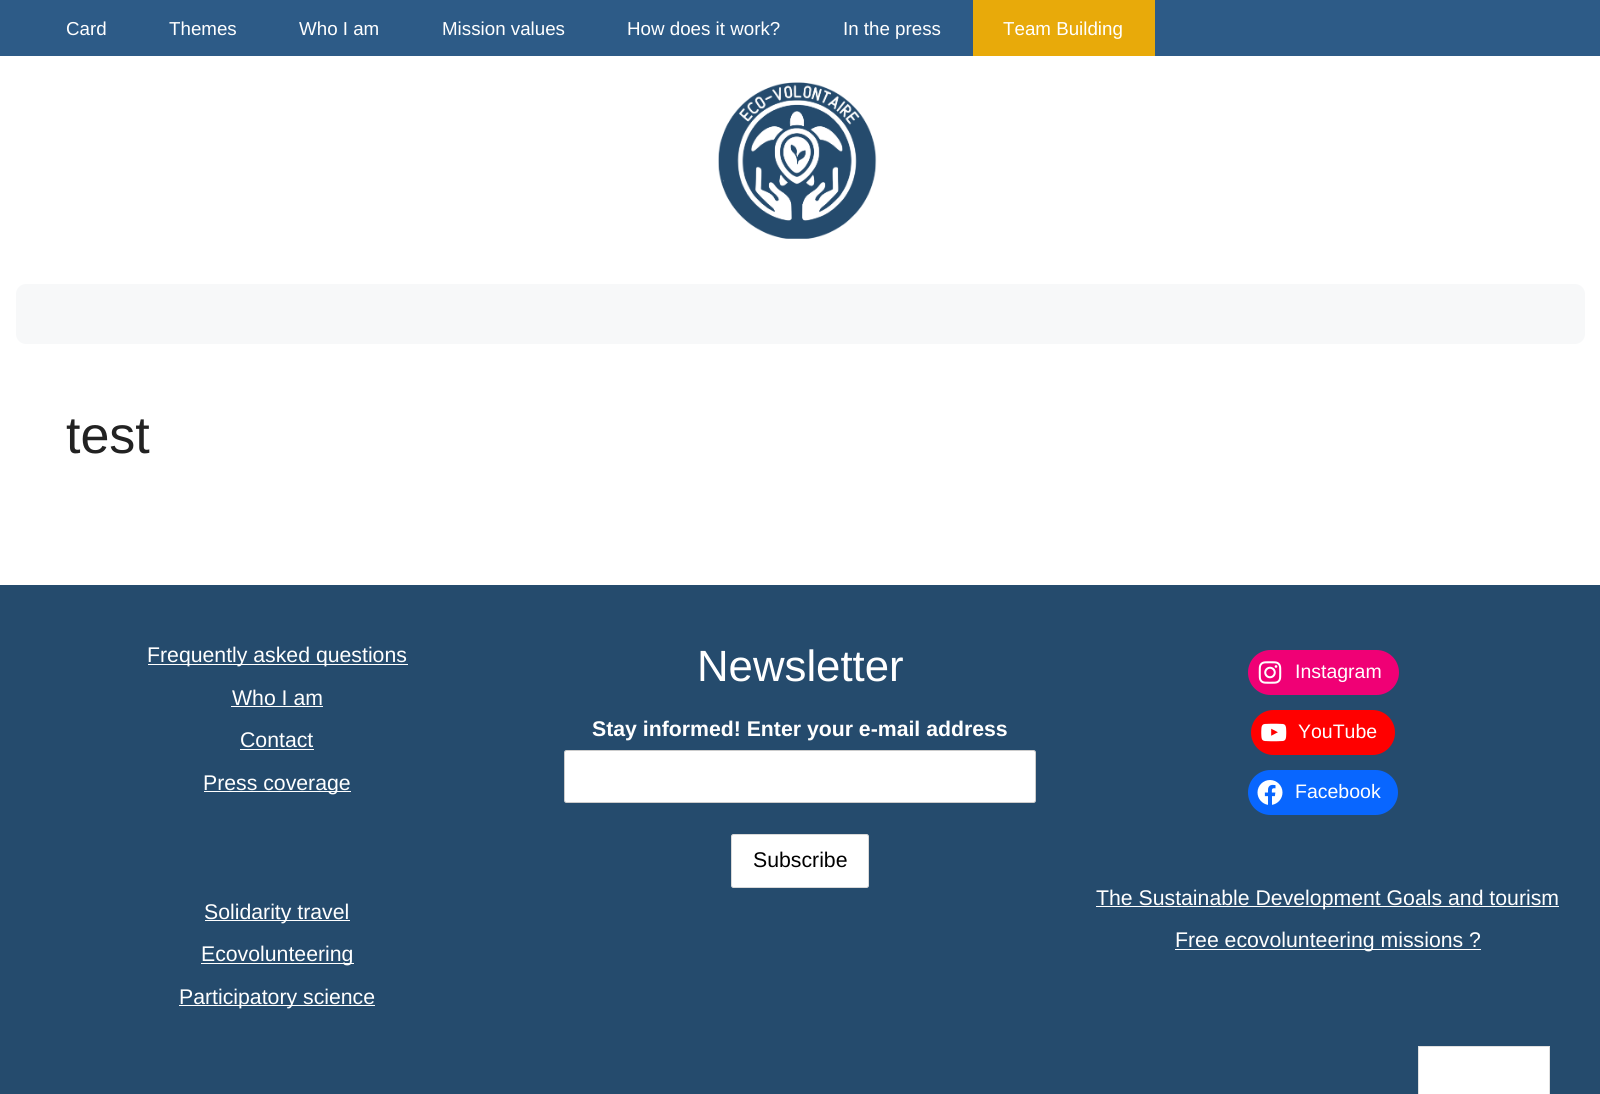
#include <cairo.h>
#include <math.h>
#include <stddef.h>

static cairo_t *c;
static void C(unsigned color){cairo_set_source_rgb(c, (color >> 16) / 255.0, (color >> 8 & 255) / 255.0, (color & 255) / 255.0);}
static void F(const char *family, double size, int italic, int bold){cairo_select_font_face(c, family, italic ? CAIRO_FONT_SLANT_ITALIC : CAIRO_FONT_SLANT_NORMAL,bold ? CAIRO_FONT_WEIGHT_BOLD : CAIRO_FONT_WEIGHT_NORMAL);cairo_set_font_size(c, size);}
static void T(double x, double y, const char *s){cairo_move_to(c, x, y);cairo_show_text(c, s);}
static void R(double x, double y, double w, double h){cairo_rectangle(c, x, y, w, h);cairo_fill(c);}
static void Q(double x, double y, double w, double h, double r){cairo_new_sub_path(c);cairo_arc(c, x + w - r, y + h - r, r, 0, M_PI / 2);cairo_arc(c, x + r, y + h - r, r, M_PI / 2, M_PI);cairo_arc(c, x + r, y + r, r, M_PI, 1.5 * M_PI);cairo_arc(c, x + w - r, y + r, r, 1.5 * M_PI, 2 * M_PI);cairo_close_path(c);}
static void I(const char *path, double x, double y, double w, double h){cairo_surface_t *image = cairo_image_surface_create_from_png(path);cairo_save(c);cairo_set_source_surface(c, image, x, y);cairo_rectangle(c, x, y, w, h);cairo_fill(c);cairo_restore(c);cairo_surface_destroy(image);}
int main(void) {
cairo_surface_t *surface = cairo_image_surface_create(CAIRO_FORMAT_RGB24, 1600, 1094);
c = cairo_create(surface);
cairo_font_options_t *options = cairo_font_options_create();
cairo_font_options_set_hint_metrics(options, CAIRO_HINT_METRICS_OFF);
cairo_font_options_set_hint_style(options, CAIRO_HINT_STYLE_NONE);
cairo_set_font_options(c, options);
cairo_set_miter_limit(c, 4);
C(0xffffff);
cairo_paint(c);
C(0x2d5b87);
R(0,0,1600,56);
F("Liberation Sans",18.75,0,0);
C(0xffffff);
T(66,35,"Card");
T(169,35,"Themes");
T(299,35,"Who I am");
T(442,35,"Mission values");
T(627,35,"How does it work?");
T(843,35,"In the press");
C(0xe8aa0a);
R(973,0,182,56);
C(0xffffff);
T(1003,35,"Team Building");
I("1.png",718,82,159,157);
C(0xf7f8f9);
Q(16,284,1569,60,10);
cairo_fill(c);
F("Liberation Sans",52,0,0);
C(0x222222);
T(66,453,"test");
C(0x254b6d);
R(0,585,1600,509);
C(0xffffff);
R(148,664,260,1);
F("Liberation Sans",21.25,0,0);
T(147,662,"Frequently asked questions");
T(232,705,"Who I am");
R(231,706,92,1);
T(240,747,"Contact");
R(240,749,74,1);
R(204,791,147,1);
T(203,790,"Press coverage");
R(205,920,145,1);
T(204,919,"Solidarity travel");
R(201,963,153,1);
T(201,961,"Ecovolunteering");
R(179,1005,196,1);
T(179,1004,"Participatory science");
F("Liberation Sans",43.75,0,0);
T(697,681,"Newsletter");
F("Liberation Sans",21.25,0,1);
T(592,736,"Stay informed! Enter your e-mail address");
Q(564.5,750.5,471,52,2);
cairo_fill_preserve(c);
C(0xcccccc);
cairo_set_line_width(c,1);
cairo_stroke(c);
C(0xffffff);
Q(731.5,834.5,137,53,2);
cairo_fill_preserve(c);
C(0xd9d9d9);
cairo_stroke(c);
F("Liberation Sans",21.25,0,0);
C(0x000000);
T(753,867,"Subscribe");
C(0xf00075);
Q(1248,650,151,45,22.5);
cairo_fill(c);
I("2.png",1258,661,24,23);
F("Liberation Sans",19.5,0,0);
C(0xffffff);
T(1295,678,"Instagram");
C(0xff0000);
Q(1251,710,144,45,22.5);
cairo_fill(c);
I("3.png",1261,723,26,19);
C(0xffffff);
T(1298,738,"YouTube");
C(0x0866ff);
Q(1248,770,150,45,22.5);
cairo_fill(c);
I("4.png",1257,780,26,25);
C(0xffffff);
T(1295,798,"Facebook");
R(1096,906,463,1);
F("Liberation Sans",21.25,0,0);
T(1096,905,"The Sustainable Development Goals and tourism");
R(1175,949,306,1);
T(1175,947,"Free ecovolunteering missions ?");
cairo_rectangle(c,1418.5,1046.5,131,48);
cairo_fill_preserve(c);
C(0xe0e0e0);
cairo_stroke(c);
cairo_surface_write_to_png(surface, "o.png");
cairo_font_options_destroy(options);
cairo_destroy(c);
cairo_surface_destroy(surface);
return 0;
}
